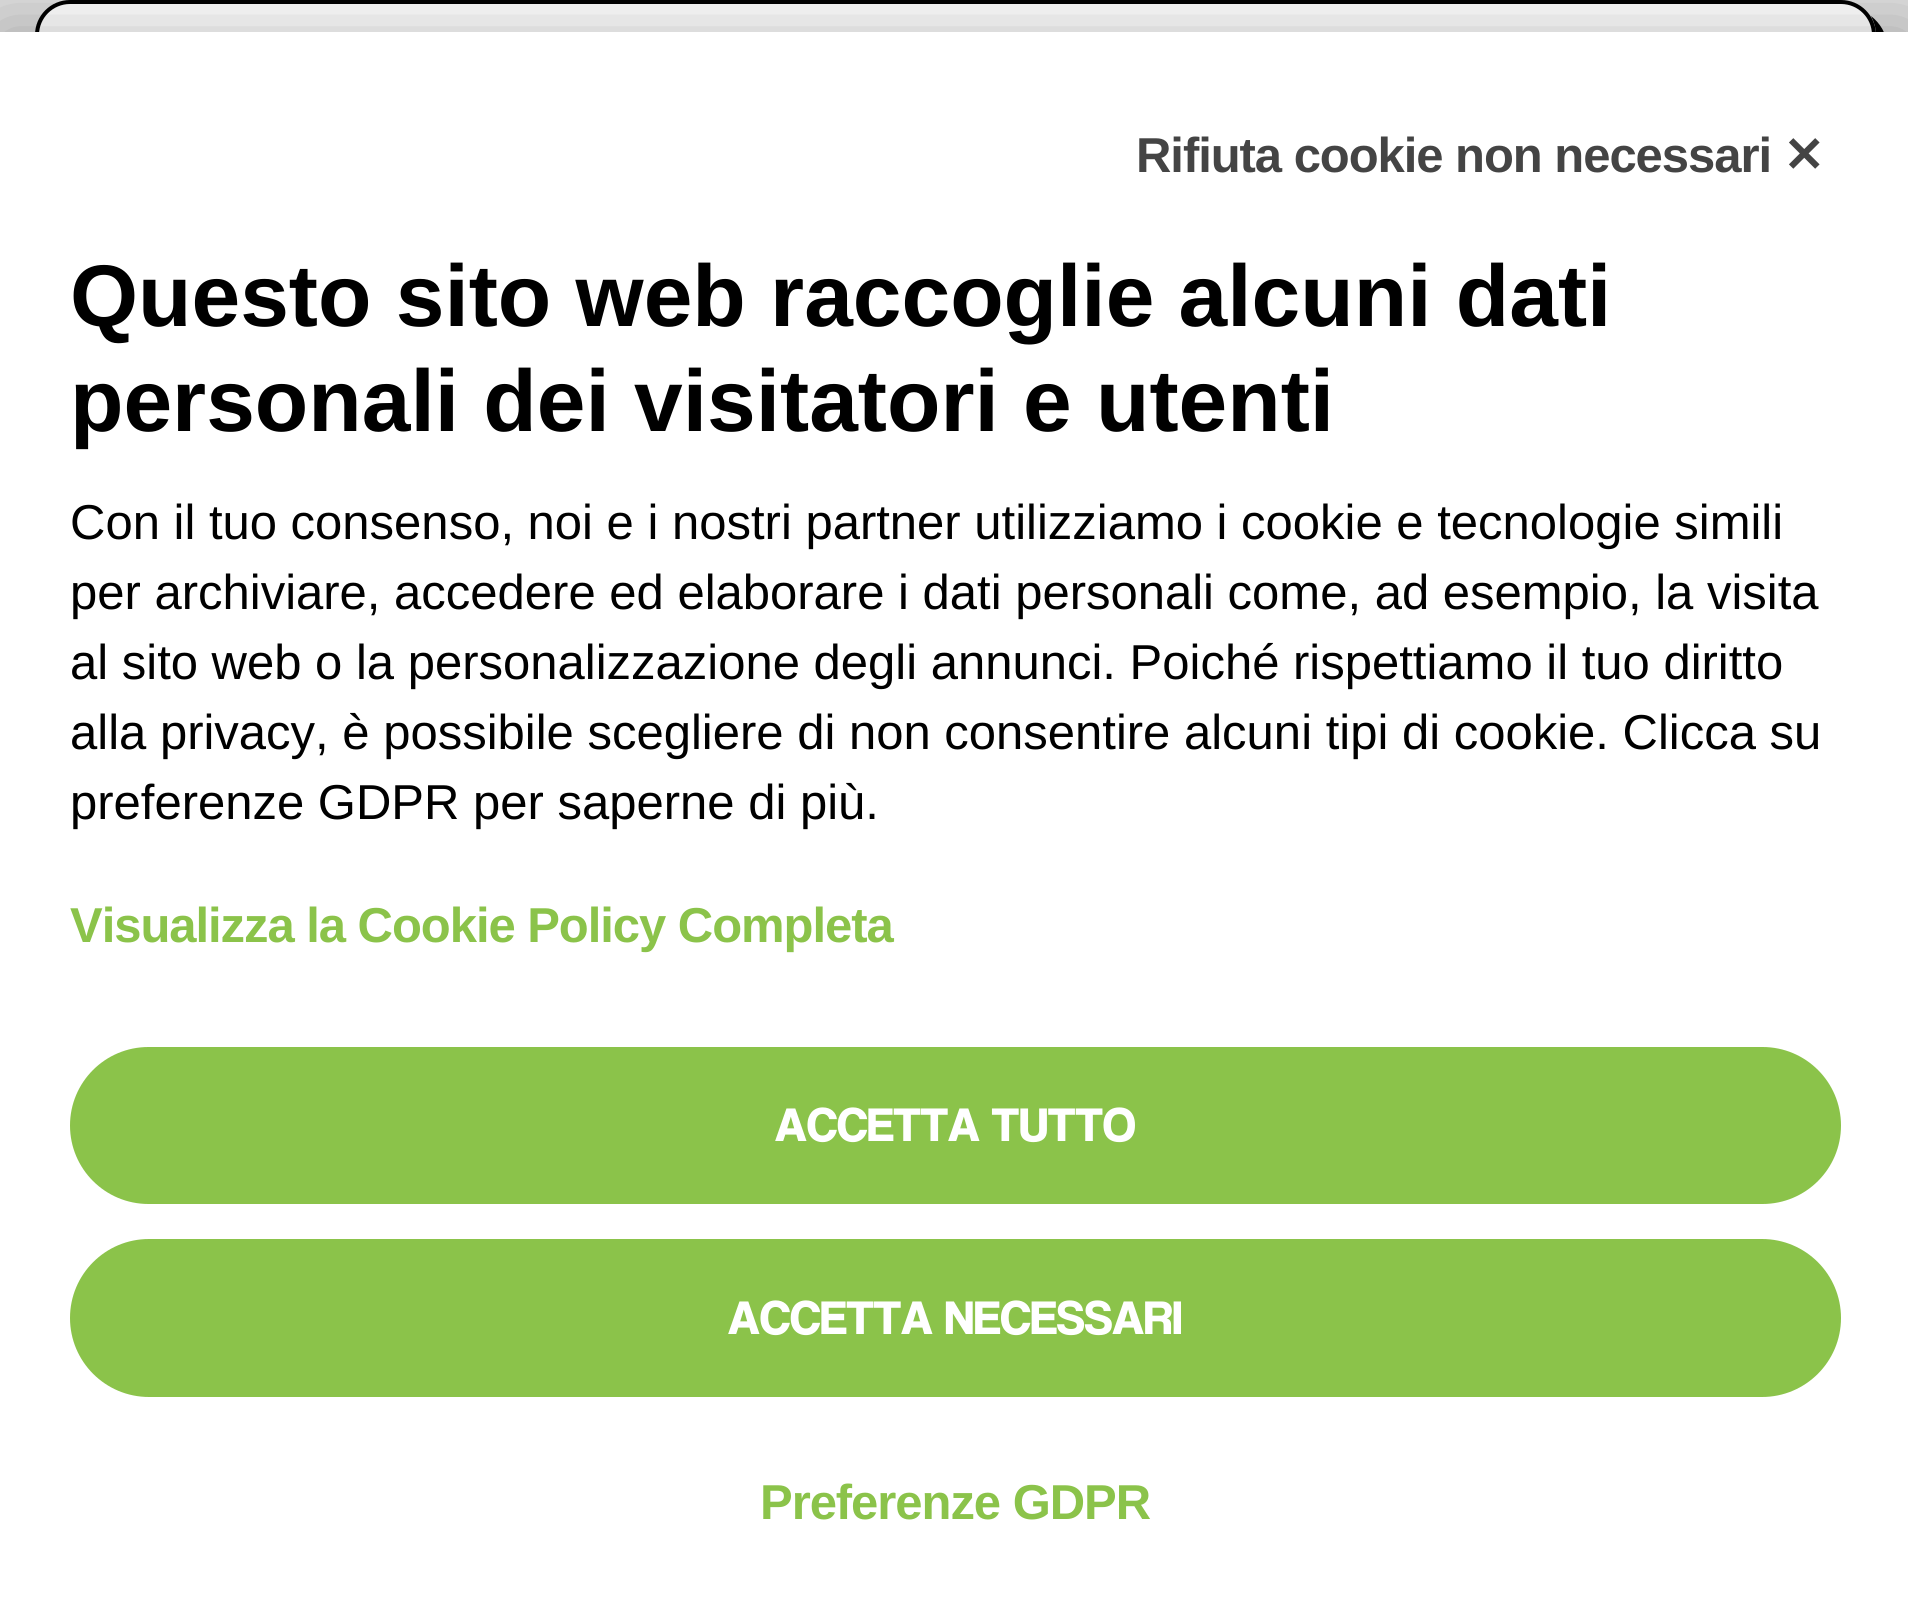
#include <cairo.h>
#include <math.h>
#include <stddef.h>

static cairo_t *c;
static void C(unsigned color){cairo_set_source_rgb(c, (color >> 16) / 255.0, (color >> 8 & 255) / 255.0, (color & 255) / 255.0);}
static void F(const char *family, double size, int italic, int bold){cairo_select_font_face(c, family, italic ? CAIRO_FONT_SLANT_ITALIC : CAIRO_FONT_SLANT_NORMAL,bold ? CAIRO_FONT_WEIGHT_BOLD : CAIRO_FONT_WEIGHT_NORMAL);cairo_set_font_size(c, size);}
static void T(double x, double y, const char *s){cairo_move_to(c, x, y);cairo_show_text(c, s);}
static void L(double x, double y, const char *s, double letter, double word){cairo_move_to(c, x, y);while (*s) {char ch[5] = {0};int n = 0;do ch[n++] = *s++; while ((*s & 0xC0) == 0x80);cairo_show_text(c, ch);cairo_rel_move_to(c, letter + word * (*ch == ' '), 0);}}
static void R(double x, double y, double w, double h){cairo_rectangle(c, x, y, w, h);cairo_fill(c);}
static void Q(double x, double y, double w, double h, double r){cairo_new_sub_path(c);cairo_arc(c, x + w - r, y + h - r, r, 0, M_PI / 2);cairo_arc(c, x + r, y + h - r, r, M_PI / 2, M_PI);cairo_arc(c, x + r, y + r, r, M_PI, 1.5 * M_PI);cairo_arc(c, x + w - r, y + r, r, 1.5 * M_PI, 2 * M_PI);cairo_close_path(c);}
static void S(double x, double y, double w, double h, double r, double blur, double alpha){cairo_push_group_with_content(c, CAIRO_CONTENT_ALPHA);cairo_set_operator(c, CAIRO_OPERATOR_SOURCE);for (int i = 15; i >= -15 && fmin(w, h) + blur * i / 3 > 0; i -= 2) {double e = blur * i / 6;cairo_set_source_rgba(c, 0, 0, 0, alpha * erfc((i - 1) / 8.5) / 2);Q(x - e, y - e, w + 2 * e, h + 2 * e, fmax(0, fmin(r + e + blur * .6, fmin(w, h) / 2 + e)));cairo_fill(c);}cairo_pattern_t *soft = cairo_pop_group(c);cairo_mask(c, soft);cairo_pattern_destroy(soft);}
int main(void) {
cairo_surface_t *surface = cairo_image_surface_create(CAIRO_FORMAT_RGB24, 1908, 1606);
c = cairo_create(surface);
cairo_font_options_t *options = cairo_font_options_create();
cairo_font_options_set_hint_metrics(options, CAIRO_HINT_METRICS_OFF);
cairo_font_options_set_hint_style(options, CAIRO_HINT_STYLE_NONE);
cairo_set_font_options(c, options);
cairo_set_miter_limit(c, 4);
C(0xdddddd);
cairo_paint(c);
C(0x000000);
cairo_new_path(c);
cairo_move_to(c,51,240);
cairo_curve_to(c,58,249,69,256,81,256);
cairo_line_to(c,1852,256);
cairo_curve_to(c,1871,256,1887,240,1887,221);
cairo_line_to(c,1887,46);
cairo_curve_to(c,1887,34,1880,23,1871,16);
cairo_curve_to(c,1874,22,1876,28,1876,35);
cairo_line_to(c,1876,210);
cairo_curve_to(c,1876,229,1860,245,1841,245);
cairo_line_to(c,70,245);
cairo_curve_to(c,63,245,57,243,51,240);
cairo_close_path(c);
cairo_fill(c);
C(0xffffff);
Q(37,2,1837,241,33);
cairo_fill_preserve(c);
C(0x000000);
cairo_set_line_width(c,4);
cairo_stroke(c);
C(0x000000);
S(0,32,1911,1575,0,35,.27);
C(0xffffff);
R(0,32,1908,1574);
F("Liberation Sans",49,0,1);
C(0x444444);
L(1136,172,"Rifiuta cookie non necessari",-1.05,0);
F("DejaVu Sans",49,0,1);
L(1783,172,"✕",-1.05,0);
F("Liberation Sans",87.5,0,1);
C(0x000000);
T(70,326,"Questo sito web raccoglie alcuni dati");
T(70,431,"personali dei visitatori e utenti");
F("Liberation Sans",49,0,0);
T(70,539,"Con il tuo consenso, noi e i nostri partner utilizziamo i cookie e tecnologie simili");
T(70,609,"per archiviare, accedere ed elaborare i dati personali come, ad esempio, la visita");
T(70,679,"al sito web o la personalizzazione degli annunci. Poiché rispettiamo il tuo diritto");
T(70,749,"alla privacy, è possibile scegliere di non consentire alcuni tipi di cookie. Clicca su");
T(70,819,"preferenze GDPR per saperne di più.");
F("Liberation Sans",49,0,1);
C(0x8bc34a);
L(70,942,"Visualizza la Cookie Policy Completa",-1.05,0);
Q(70,1047,1771,157,78.5);
cairo_fill(c);
F("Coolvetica",49,0,1);
C(0xffffff);
T(775,1141,"ACCETTA TUTTO");
C(0x8bc34a);
Q(70,1239,1771,158,79);
cairo_fill(c);
C(0xffffff);
T(728,1334,"ACCETTA NECESSARI");
F("Liberation Sans",49,0,1);
C(0x8bc34a);
L(760,1519,"Preferenze GDPR",-1.05,0);
cairo_surface_write_to_png(surface, "o.png");
cairo_font_options_destroy(options);
cairo_destroy(c);
cairo_surface_destroy(surface);
return 0;
}
